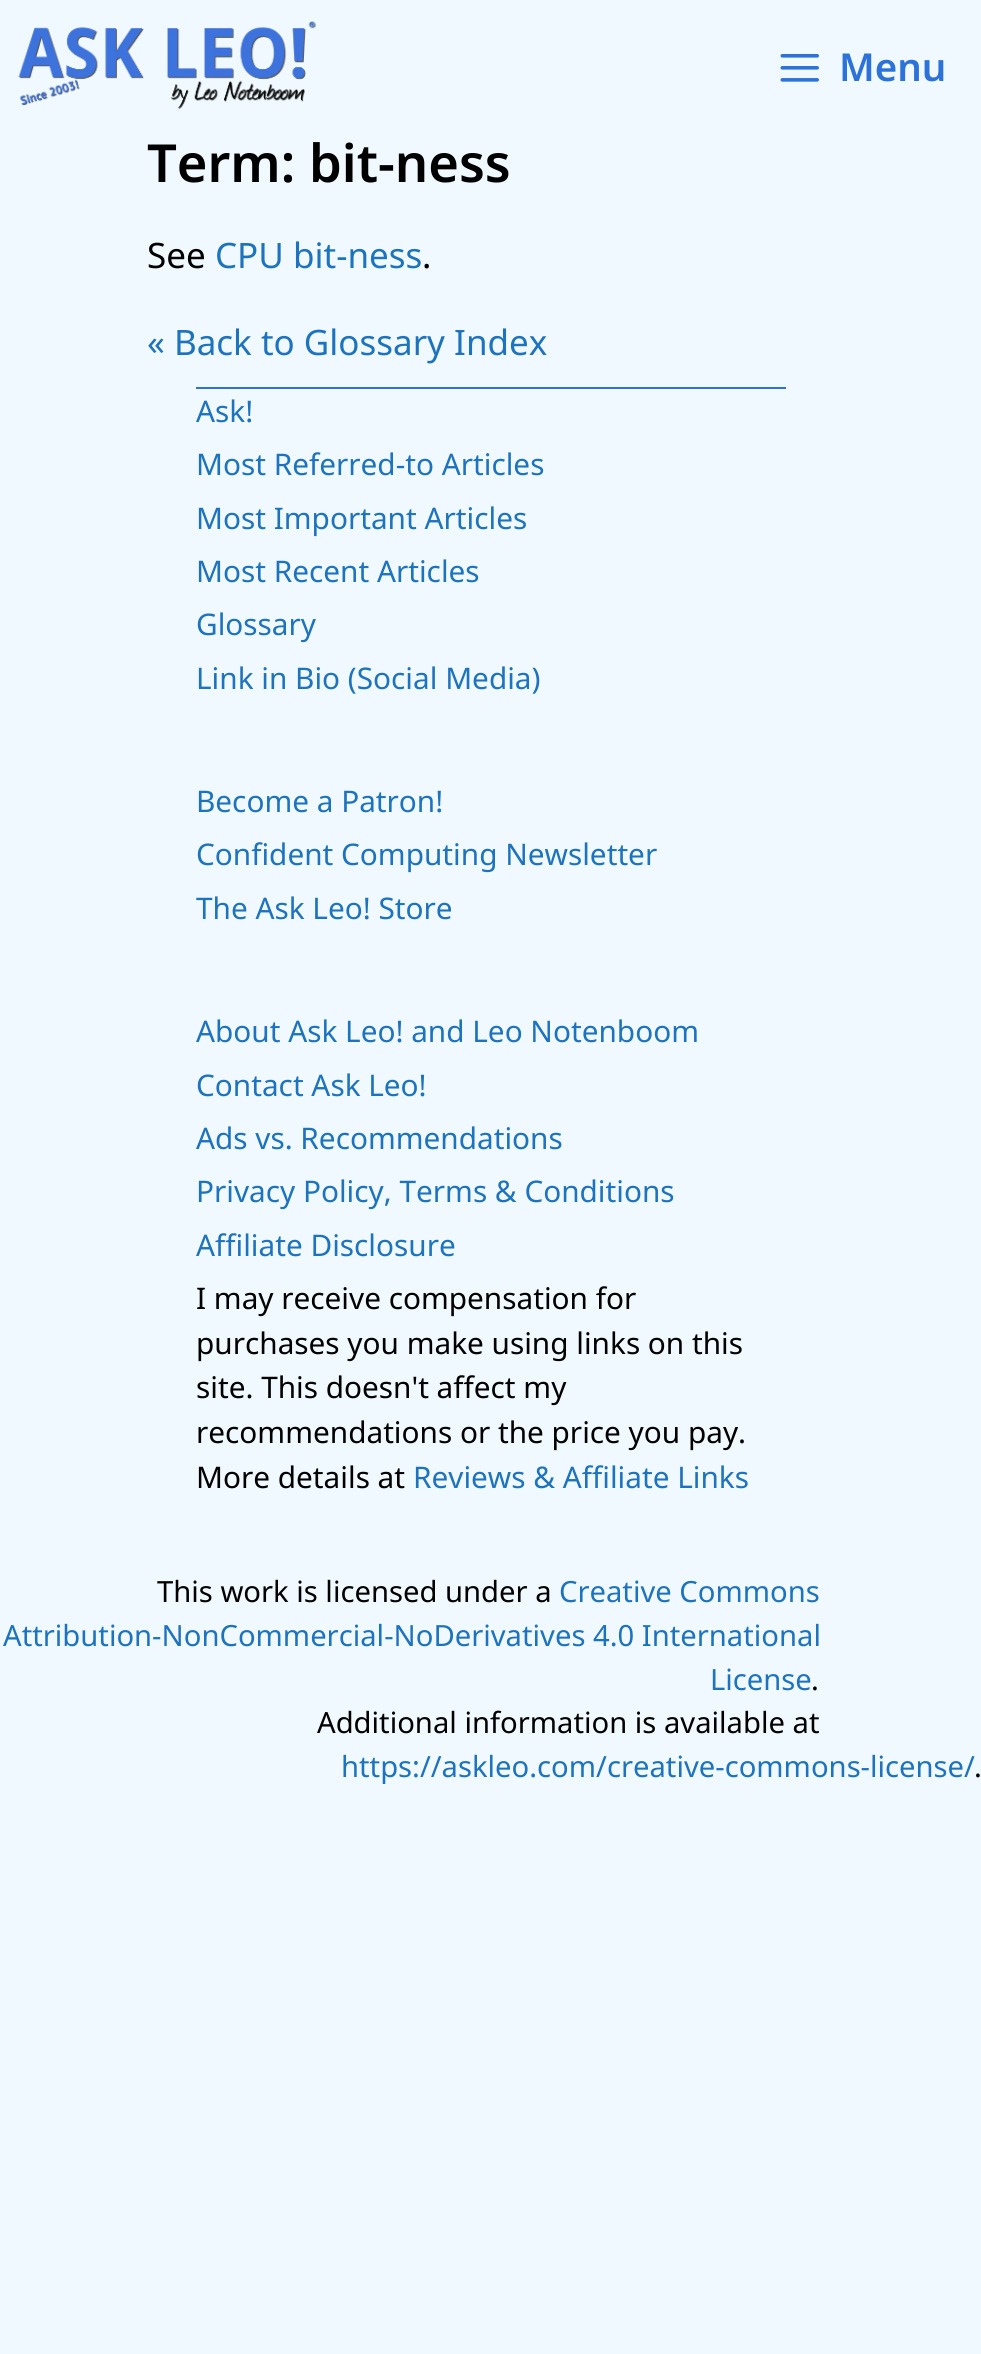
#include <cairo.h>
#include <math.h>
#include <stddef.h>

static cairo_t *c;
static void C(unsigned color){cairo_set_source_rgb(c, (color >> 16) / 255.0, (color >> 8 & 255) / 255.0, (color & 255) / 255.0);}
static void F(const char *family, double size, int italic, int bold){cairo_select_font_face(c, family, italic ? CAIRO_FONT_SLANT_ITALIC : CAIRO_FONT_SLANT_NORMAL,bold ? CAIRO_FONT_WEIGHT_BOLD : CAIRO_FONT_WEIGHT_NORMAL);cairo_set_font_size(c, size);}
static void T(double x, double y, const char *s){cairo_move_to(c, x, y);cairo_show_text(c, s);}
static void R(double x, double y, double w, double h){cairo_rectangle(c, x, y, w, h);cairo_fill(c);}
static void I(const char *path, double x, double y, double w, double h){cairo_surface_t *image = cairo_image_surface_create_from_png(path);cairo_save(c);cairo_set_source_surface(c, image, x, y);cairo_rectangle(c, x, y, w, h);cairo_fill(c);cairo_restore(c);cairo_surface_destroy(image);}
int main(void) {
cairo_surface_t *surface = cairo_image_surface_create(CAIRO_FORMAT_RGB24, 981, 2354);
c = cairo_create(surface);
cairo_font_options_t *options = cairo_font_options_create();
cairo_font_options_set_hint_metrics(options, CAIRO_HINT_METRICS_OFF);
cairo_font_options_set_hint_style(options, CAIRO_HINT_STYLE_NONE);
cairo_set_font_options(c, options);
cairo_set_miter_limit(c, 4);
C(0xf0f9ff);
cairo_paint(c);
I("1.png",18,21,298,88);
I("2.png",780,54,39,28);
F("Noto Sans SemiBold",38.5,0,0);
C(0x2d72d9);
T(839,81,"Menu");
F("Noto Sans SemiBold",52.5,0,0);
C(0x000000);
T(147,182,"Term: bit-ness");
F("Noto Sans",35,0,0);
T(147,268,"See");
C(0x1e73be);
T(215,268,"CPU bit-ness");
C(0x000000);
T(422,268,".");
C(0x1e73be);
T(147,355,"« Back to Glossary Index");
C(0x2d72d9);
R(196,387,590,2);
F("Noto Sans",29.75,0,0);
C(0x1e73be);
T(196,422,"Ask!");
T(196,475,"Most Referred-to Articles");
T(196,529,"Most Important Articles");
T(196,582,"Most Recent Articles");
T(196,635,"Glossary");
T(196,689,"Link in Bio (Social Media)");
T(196,812,"Become a Patron!");
T(196,865,"Confident Computing Newsletter");
T(196,919,"The Ask Leo! Store");
T(196,1042,"About Ask Leo! and Leo Notenboom");
T(196,1096,"Contact Ask Leo!");
T(196,1149,"Ads vs. Recommendations");
T(196,1202,"Privacy Policy, Terms & Conditions");
T(196,1256,"Affiliate Disclosure");
C(0x000000);
T(196,1309,"I may receive compensation for");
T(196,1354,"purchases you make using links on this");
T(196,1398,"site. This doesn't affect my");
T(196,1443,"recommendations or the price you pay.");
T(196,1488,"More details at");
C(0x1e73be);
T(413,1488,"Reviews & Affiliate Links");
F("Noto Sans",29.2,0,0);
C(0x000000);
T(157,1602,"This work is licensed under a");
C(0x1e73be);
T(559,1602,"Creative Commons");
T(3,1646,"Attribution-NonCommercial-NoDerivatives 4.0 International");
T(710,1690,"License");
C(0x000000);
T(811,1690,".");
T(317,1733,"Additional information is available at");
C(0x1e73be);
T(341,1777,"https://askleo.com/creative-commons-license/");
C(0x000000);
T(974,1777,".");
cairo_surface_write_to_png(surface, "o.png");
cairo_font_options_destroy(options);
cairo_destroy(c);
cairo_surface_destroy(surface);
return 0;
}
